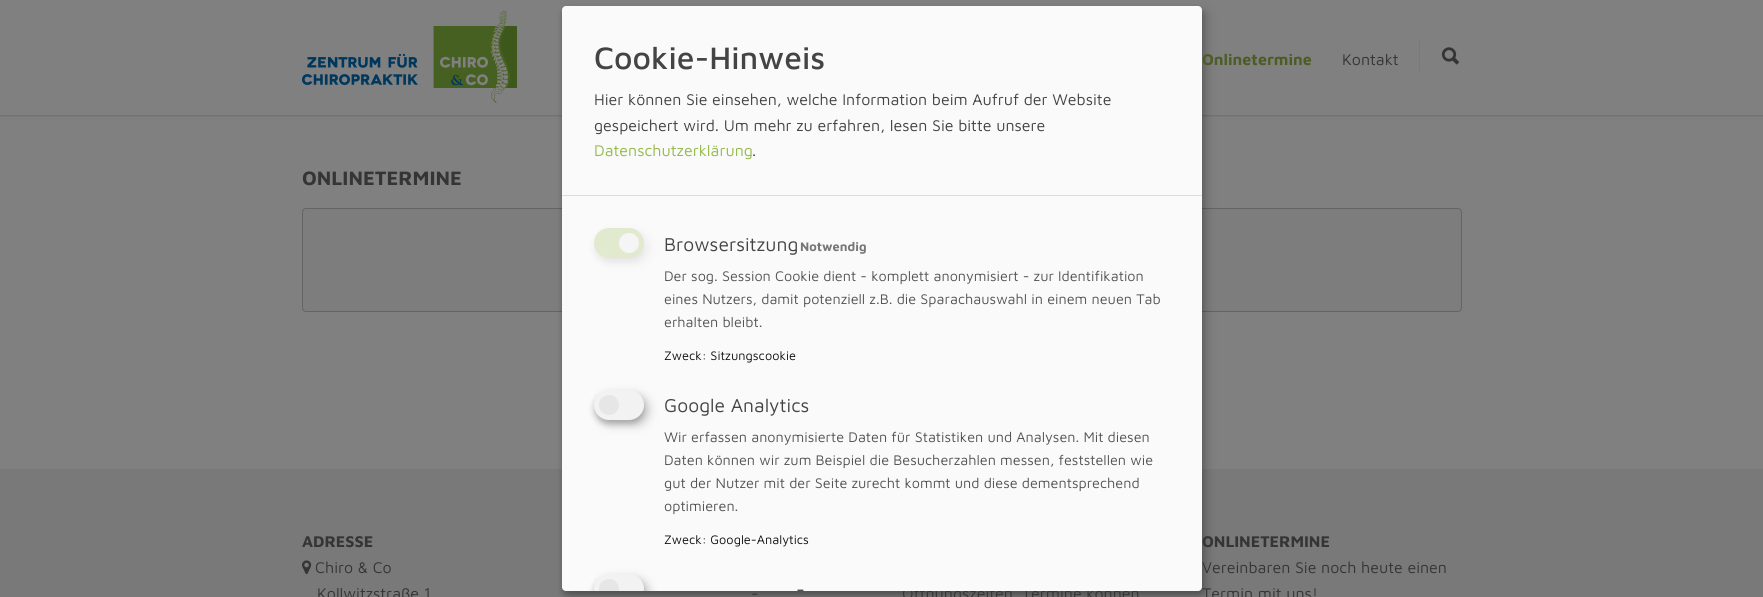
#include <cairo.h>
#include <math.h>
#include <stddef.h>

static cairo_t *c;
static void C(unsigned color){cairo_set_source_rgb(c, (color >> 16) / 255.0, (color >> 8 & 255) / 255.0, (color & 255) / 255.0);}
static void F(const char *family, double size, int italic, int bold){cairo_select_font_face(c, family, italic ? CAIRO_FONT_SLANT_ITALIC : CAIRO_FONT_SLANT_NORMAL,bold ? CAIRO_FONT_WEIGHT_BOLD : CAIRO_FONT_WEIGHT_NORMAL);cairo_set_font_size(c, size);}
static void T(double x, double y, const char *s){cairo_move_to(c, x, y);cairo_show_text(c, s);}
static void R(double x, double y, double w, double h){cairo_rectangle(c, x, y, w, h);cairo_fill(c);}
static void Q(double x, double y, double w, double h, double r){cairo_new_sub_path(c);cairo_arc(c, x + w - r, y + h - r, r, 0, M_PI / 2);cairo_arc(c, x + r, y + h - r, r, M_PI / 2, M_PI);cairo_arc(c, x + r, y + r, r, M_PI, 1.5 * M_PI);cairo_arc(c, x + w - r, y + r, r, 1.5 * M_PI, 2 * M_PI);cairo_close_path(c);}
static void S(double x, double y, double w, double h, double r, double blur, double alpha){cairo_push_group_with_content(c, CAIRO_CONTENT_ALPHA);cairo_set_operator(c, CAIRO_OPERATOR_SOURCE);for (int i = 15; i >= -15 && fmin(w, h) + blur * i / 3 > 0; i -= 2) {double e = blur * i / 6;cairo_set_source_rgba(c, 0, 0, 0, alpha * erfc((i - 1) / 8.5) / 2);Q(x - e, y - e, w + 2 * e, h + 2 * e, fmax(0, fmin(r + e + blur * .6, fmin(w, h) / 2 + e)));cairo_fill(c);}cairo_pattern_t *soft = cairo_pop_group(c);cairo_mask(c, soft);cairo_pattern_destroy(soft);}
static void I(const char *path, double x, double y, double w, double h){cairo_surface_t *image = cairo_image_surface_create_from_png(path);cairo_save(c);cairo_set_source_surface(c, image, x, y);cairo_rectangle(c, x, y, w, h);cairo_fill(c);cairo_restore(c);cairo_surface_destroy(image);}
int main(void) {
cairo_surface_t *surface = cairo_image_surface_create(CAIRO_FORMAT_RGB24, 1763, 597);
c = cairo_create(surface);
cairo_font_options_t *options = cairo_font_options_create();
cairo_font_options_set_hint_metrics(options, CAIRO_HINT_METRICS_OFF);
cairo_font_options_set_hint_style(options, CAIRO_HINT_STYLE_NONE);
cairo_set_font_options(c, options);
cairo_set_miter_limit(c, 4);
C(0x808080);
cairo_paint(c);
C(0x7d7d7d);
Q(302.5,208.5,1159,103,3.5);
cairo_fill_preserve(c);
C(0x646464);
cairo_set_line_width(c,1);
cairo_stroke(c);
C(0x797979);
R(0,469,1763,128);
C(0x000000);
S(567,11,640,585,4,5,.19);
S(562,10,640,585,4,3,.2);
cairo_save(c);
cairo_rectangle(c,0,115,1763,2);
cairo_clip(c);
S(-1,-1,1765,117,0,1,.16);
cairo_restore(c);
F("Maven Pro",16,0,0);
C(0x353535);
T(902,599,"Öffnungszeiten. Termine können");
T(1202,573,"Vereinbaren Sie noch heute einen");
T(1202,599,"Termin mit uns!");
C(0xfafafa);
Q(562,6,640,585,4);
cairo_fill(c);
C(0xdddddd);
R(562,195,640,1);
F("Maven Pro Medium",32,0,0);
C(0x444444);
T(594,69,"Cookie-Hinweis");
F("Maven Pro",16,0,0);
T(594,105,"Hier können Sie einsehen, welche Information beim Aufruf der Website");
T(594,131,"gespeichert wird. Um mehr zu erfahren, lesen Sie bitte unsere");
C(0x95b94a);
T(594,156,"Datenschutzerklärung");
C(0x444444);
T(752,156,".");
C(0xbcbcbc);
S(599,233,50,30,15,5,.19);
S(594,232,50,30,15,3,.2);
C(0xe1eace);
Q(594,228,50,30,15);
cairo_fill(c);
C(0xf5f5f5);
cairo_arc(c,629,243,10,0,2 * M_PI);
cairo_fill(c);
F("Maven Pro",19.25,0,0);
C(0x444444);
T(664,251,"Browsersitzung");
F("Maven Pro",12.75,0,1);
C(0x777777);
T(800,251,"Notwendig");
F("Maven Pro",14.4,0,0);
C(0x555555);
T(664,281,"Der sog. Session Cookie dient - komplett anonymisiert - zur Identifikation");
T(664,304,"eines Nutzers, damit potenziell z.B. die Sparachauswahl in einem neuen Tab");
T(664,327,"erhalten bleibt.");
F("Maven Pro",12.75,0,0);
C(0x111111);
T(664,360,"Zweck: Sitzungscookie");
C(0x000000);
S(599,395,50,30,15,5,.19);
S(594,394,50,30,15,3,.2);
C(0xf2f2f2);
Q(594,390,50,30,15);
cairo_fill(c);
C(0xe6e6e6);
cairo_arc(c,609,405,10,0,2 * M_PI);
cairo_fill(c);
F("Maven Pro",19.25,0,0);
C(0x444444);
T(664,412,"Google Analytics");
F("Maven Pro",14.4,0,0);
C(0x555555);
T(664,442,"Wir erfassen anonymisierte Daten für Statistiken und Analysen. Mit diesen");
T(664,465,"Daten können wir zum Beispiel die Besucherzahlen messen, feststellen wie");
T(664,488,"gut der Nutzer mit der Seite zurecht kommt und diese dementsprechend");
T(664,511,"optimieren.");
F("Maven Pro",12.75,0,0);
C(0x111111);
T(664,544,"Zweck: Google-Analytics");
cairo_save(c);
Q(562,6,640,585,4);
cairo_clip(c);
C(0x000000);
S(599,579,50,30,15,5,.19);
S(594,578,50,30,15,3,.2);
cairo_restore(c);
cairo_save(c);
Q(562,6,640,585,4);
cairo_clip(c);
C(0xf2f2f2);
Q(594,574,50,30,15);
cairo_fill(c);
C(0xe6e6e6);
cairo_arc(c,609,589,10,0,2 * M_PI);
cairo_fill(c);
cairo_restore(c);
F("Maven Pro",19.25,0,0);
C(0x444444);
T(796,596,"-");
I("1.png",302,11,215,92);
F("Maven Pro",16,0,1);
C(0x4b5d25);
T(1202,65,"Onlinetermine");
F("Maven Pro",16,0,0);
C(0x353535);
T(1342,65,"Kontakt");
C(0x797979);
R(1419,41,1,30);
I("2.png",1441,47,19,18);
F("Maven Pro",20,0,1);
C(0x353535);
T(302,185,"ONLINETERMINE");
F("Maven Pro",16,0,1);
T(302,547,"ADRESSE");
I("3.png",302,560,10,15);
F("Maven Pro",16,0,0);
T(315,573,"Chiro & Co");
T(317,599,"Kollwitzstraße 1");
T(751,599,"-");
F("Maven Pro",16,0,1);
T(1202,547,"ONLINETERMINE");
cairo_surface_write_to_png(surface, "o.png");
cairo_font_options_destroy(options);
cairo_destroy(c);
cairo_surface_destroy(surface);
return 0;
}
